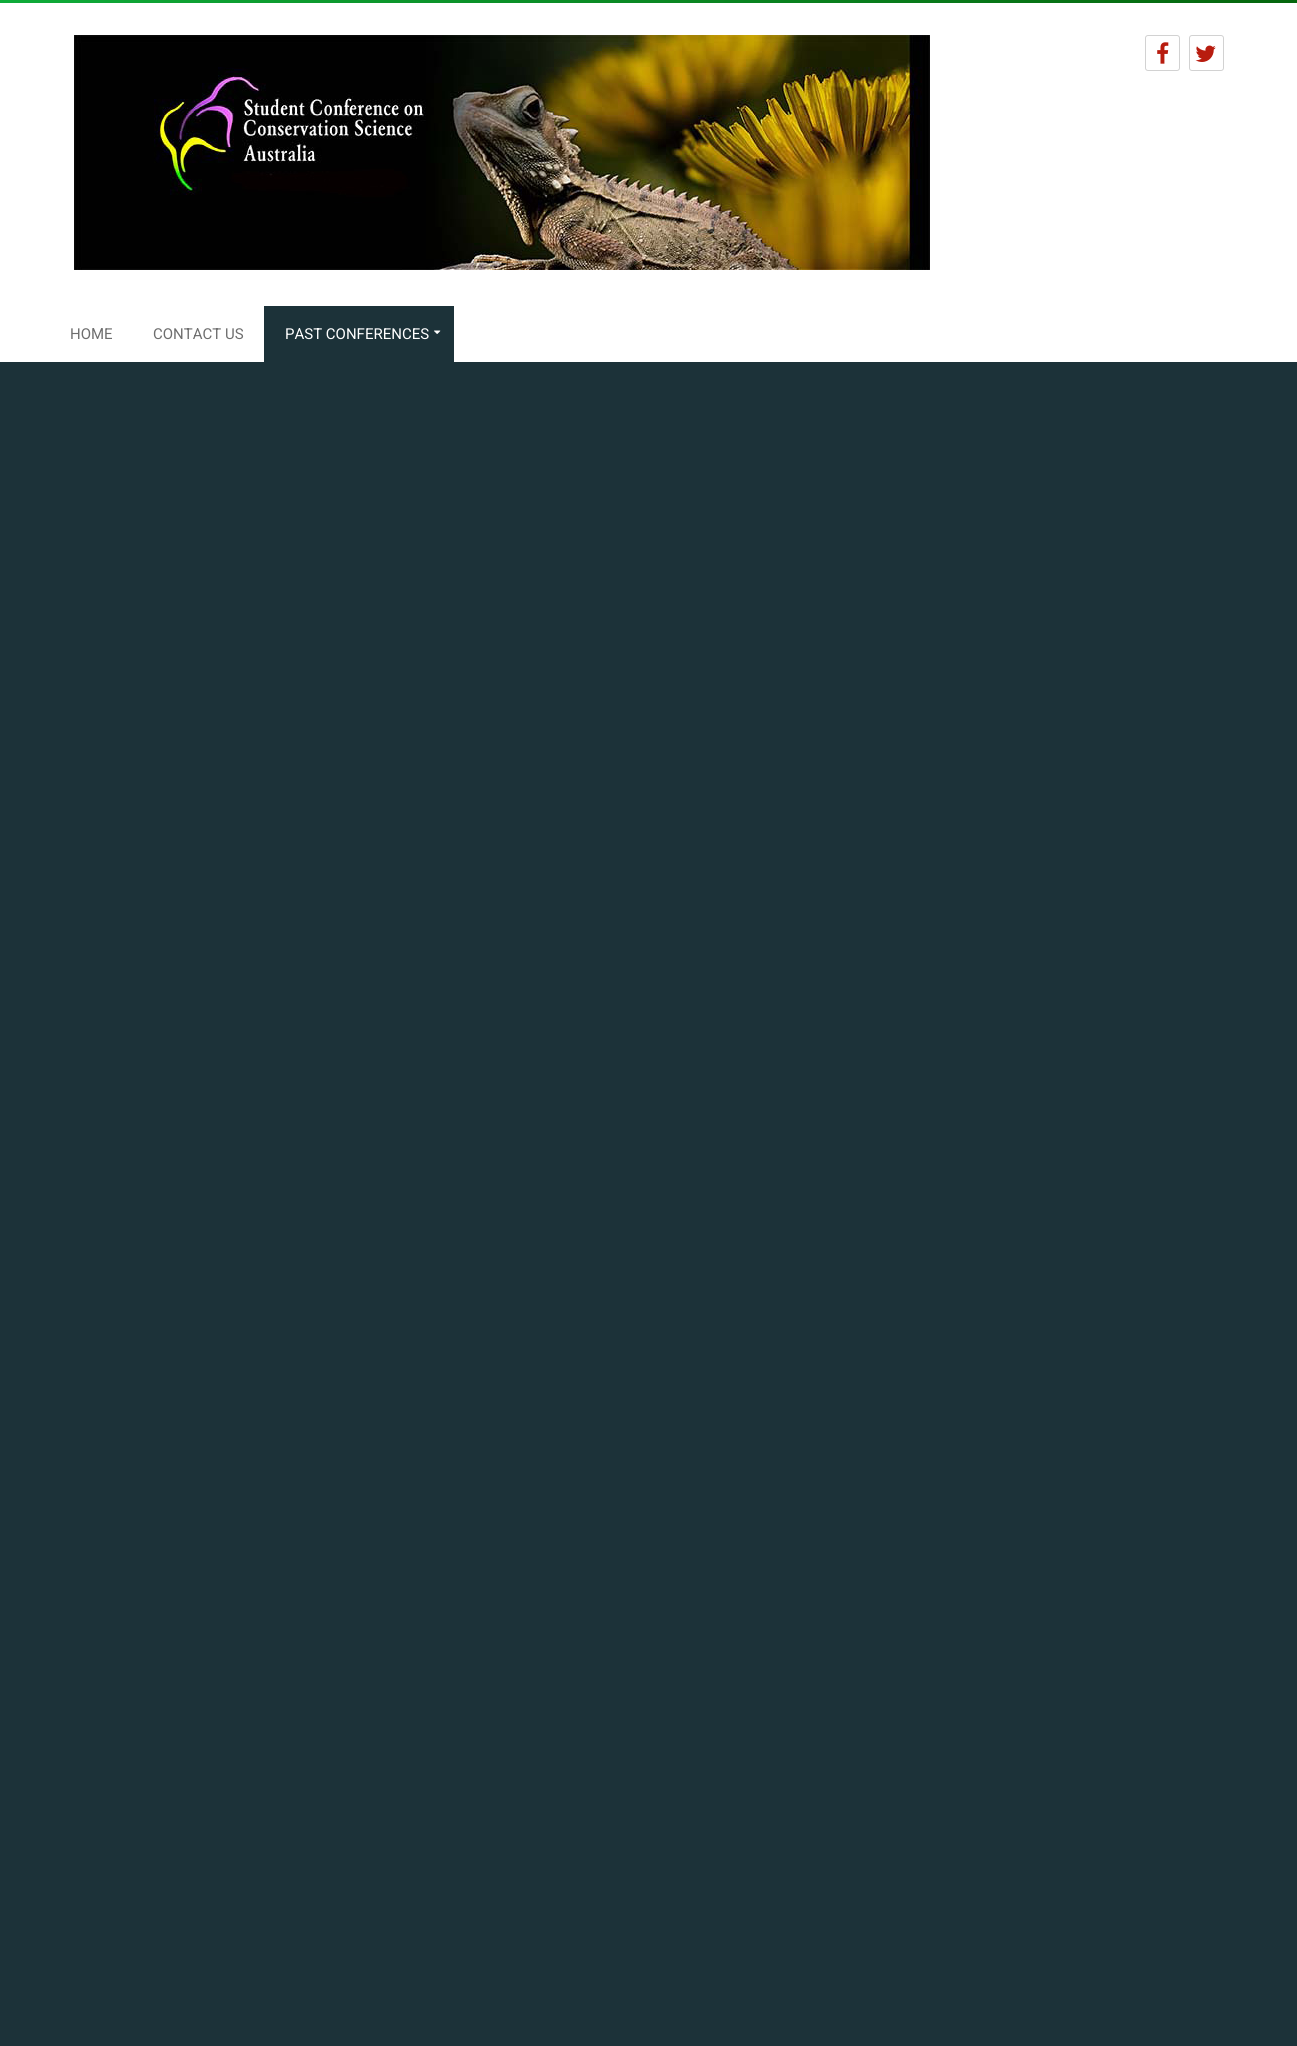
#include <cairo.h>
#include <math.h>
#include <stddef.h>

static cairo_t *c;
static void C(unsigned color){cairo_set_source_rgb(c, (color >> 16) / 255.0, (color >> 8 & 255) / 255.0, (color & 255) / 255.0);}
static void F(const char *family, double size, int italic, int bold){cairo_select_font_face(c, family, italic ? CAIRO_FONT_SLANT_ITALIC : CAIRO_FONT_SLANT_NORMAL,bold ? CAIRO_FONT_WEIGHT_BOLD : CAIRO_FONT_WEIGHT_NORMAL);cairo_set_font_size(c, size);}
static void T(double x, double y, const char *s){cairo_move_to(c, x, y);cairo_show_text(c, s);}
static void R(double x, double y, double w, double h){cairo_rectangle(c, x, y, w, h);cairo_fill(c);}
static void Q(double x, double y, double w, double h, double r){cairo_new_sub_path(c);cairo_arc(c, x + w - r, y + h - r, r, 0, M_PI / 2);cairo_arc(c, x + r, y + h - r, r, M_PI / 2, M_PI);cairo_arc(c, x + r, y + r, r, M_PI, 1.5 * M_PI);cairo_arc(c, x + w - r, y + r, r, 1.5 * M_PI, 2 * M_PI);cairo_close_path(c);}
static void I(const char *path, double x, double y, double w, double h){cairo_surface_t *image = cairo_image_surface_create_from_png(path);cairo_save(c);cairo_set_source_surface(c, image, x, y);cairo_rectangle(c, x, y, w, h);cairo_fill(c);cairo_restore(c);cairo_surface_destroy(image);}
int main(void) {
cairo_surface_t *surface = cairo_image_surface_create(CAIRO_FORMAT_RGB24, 1297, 2046);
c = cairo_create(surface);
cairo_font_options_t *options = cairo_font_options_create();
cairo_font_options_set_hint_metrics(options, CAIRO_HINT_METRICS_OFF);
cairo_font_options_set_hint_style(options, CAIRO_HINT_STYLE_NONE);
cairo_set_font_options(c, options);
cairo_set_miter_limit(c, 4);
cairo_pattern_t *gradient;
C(0x1c3239);
cairo_paint(c);
C(0xffffff);
R(0,3,1297,359);
gradient = cairo_pattern_create_linear(0,1.5,1297,1.5);
cairo_pattern_add_color_stop_rgba(gradient,0,0.059,0.671,0.224,1);
cairo_pattern_add_color_stop_rgba(gradient,1,0.02,0.4,0.051,1);
cairo_set_source(c,gradient);
cairo_pattern_destroy(gradient);
R(0,0,1297,3);
I("1.png",74,35,856,235);
Q(1145.5,35.5,34,35,2.5);
C(0xd2d2d2);
cairo_set_line_width(c,1);
cairo_stroke(c);
I("2.png",1157,42,12,22);
Q(1189.5,35.5,34,35,2.5);
cairo_stroke(c);
I("3.png",1195,45,21,17);
F("Roboto",15,0,0);
C(0x6e6e6e);
T(70,339,"HOME");
T(153,339,"CONTACT US");
C(0x1c3239);
R(264,306,190,56);
C(0xffffff);
T(285,339,"PAST CONFERENCES");
I("4.png",434,330,7,4);
cairo_surface_write_to_png(surface, "o.png");
cairo_font_options_destroy(options);
cairo_destroy(c);
cairo_surface_destroy(surface);
return 0;
}
